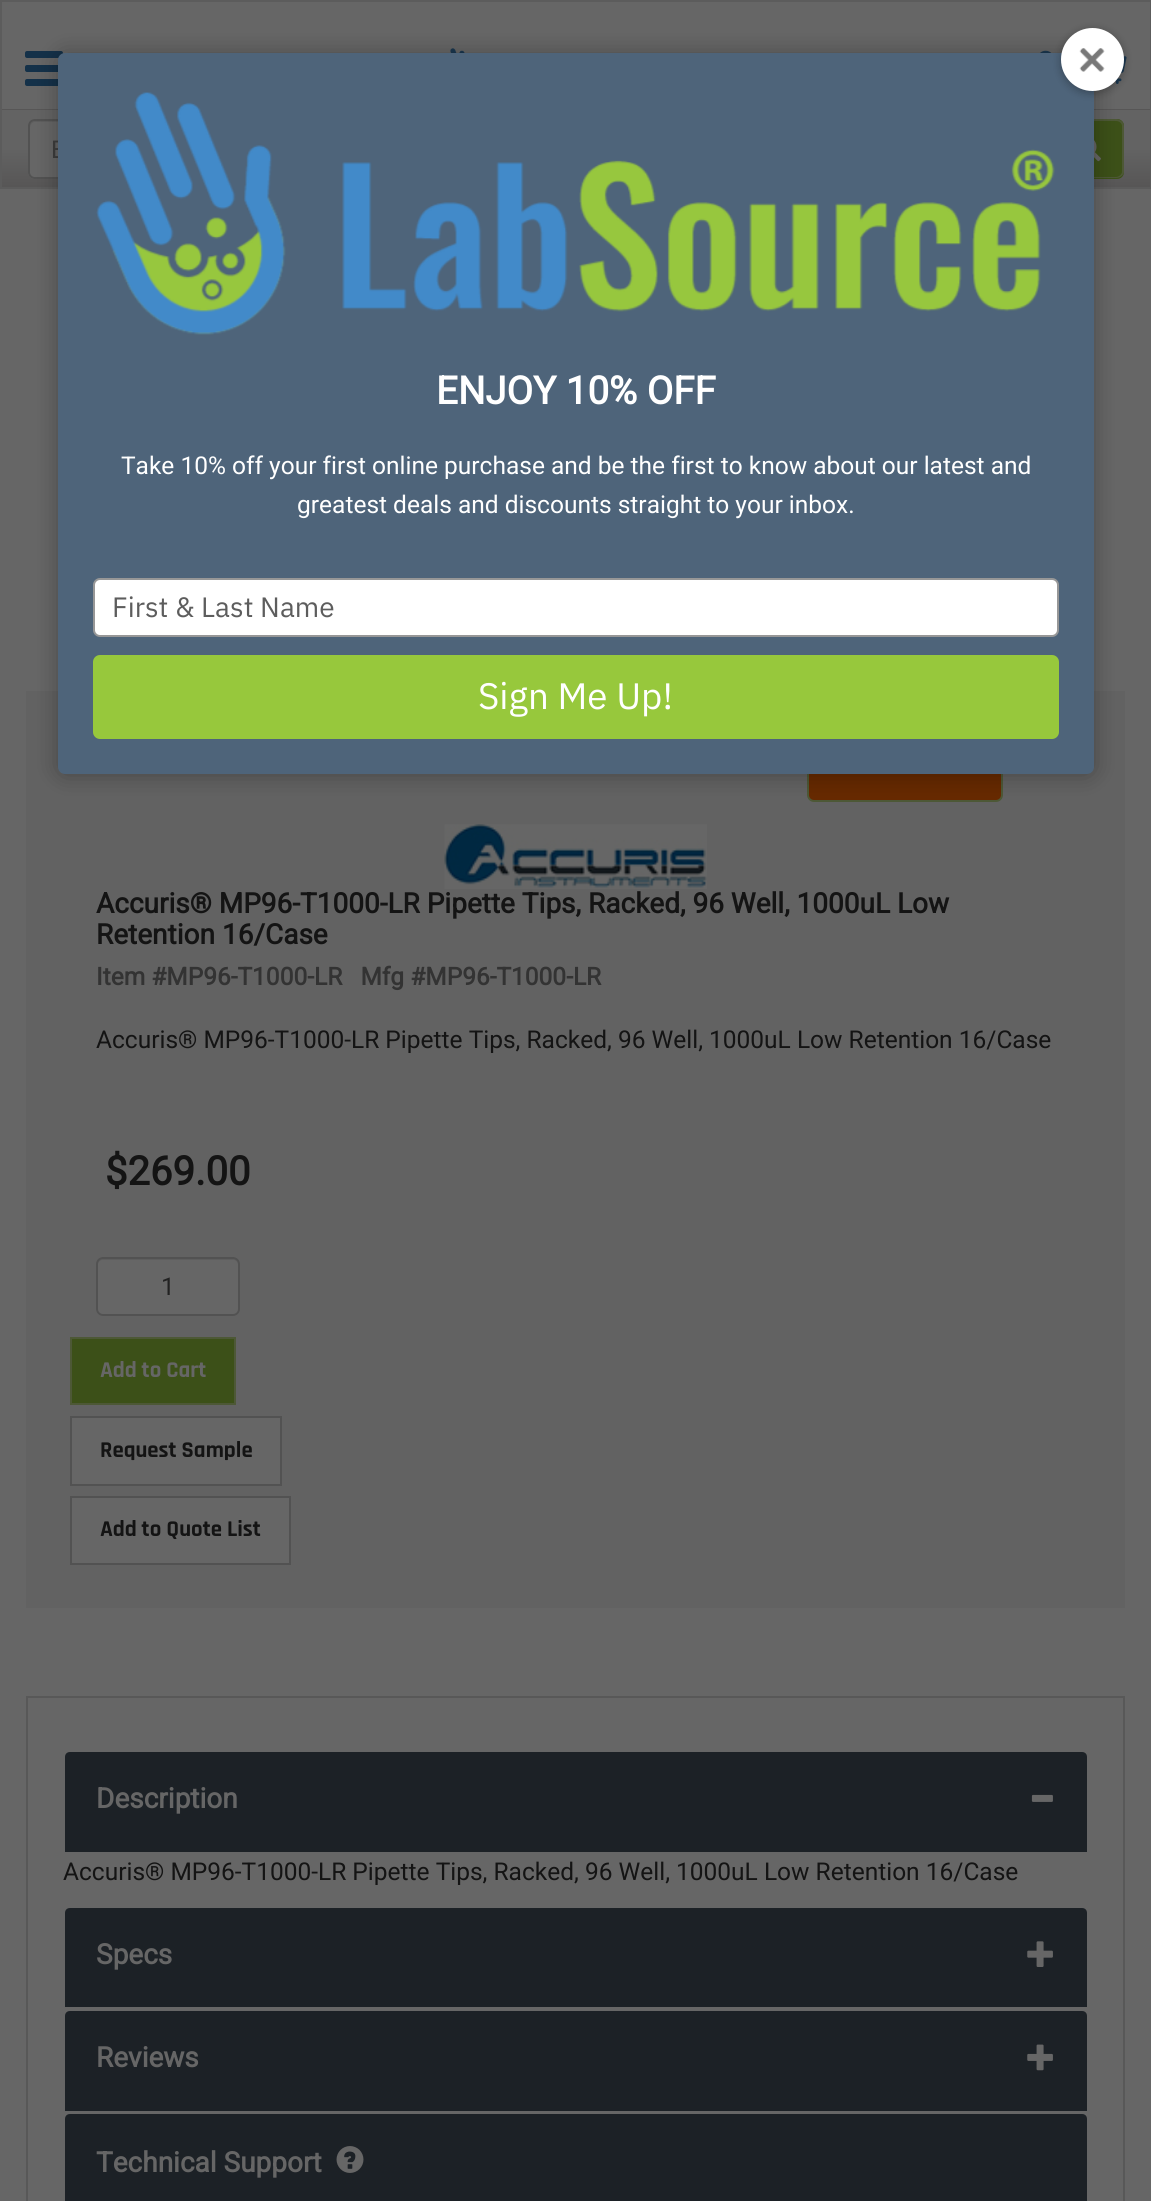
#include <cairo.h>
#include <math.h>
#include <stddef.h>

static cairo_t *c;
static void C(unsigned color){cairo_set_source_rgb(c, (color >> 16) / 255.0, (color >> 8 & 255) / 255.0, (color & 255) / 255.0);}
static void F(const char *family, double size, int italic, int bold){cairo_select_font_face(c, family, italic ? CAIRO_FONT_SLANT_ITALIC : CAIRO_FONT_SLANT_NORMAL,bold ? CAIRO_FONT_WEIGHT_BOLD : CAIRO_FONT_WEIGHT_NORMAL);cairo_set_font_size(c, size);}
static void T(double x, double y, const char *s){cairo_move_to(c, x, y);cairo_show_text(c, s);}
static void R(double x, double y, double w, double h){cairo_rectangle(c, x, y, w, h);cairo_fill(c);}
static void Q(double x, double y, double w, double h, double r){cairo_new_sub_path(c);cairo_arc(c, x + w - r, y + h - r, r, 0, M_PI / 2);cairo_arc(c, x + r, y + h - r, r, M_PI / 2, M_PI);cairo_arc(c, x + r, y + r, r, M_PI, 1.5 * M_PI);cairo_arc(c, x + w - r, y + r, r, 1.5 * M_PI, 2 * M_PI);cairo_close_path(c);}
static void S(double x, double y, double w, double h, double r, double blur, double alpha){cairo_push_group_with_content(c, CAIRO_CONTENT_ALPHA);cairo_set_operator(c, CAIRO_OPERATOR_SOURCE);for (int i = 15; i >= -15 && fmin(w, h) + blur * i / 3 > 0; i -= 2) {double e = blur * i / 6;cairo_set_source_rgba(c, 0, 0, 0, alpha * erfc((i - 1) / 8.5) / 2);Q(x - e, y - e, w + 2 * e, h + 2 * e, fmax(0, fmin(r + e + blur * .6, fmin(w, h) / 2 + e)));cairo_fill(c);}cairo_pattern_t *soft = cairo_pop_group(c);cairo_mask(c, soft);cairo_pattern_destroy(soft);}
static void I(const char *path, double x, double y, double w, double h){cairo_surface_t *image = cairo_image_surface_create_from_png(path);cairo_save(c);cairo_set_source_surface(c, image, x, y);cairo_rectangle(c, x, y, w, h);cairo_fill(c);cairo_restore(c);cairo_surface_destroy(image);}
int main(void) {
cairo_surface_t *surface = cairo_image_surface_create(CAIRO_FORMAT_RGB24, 1151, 2201);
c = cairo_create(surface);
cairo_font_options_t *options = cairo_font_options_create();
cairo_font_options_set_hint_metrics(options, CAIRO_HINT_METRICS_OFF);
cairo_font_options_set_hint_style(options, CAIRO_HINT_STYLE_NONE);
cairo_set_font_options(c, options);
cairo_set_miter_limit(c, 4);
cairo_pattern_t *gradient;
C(0x666666);
cairo_paint(c);
cairo_rectangle(c,1,1,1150,187);
C(0x5c5c5c);
cairo_stroke(c);
C(0x143149);
Q(25,51,38,7,2);
cairo_fill(c);
Q(25,65,38,7,2);
cairo_fill(c);
Q(25,79,38,7,2);
cairo_fill(c);
I("1.png",450,48,15,5);
I("2.png",1040,50,12,3);
I("3.png",1114,56,13,28);
gradient = cairo_pattern_create_linear(576,33,576,110);
cairo_pattern_add_color_stop_rgba(gradient,.5,0.388,0.388,0.388,1);
cairo_pattern_add_color_stop_rgba(gradient,1,0.341,0.337,0.337,1);
cairo_set_source(c,gradient);
cairo_pattern_destroy(gradient);
R(2,109,1148,1);
gradient = cairo_pattern_create_linear(576,110,576,187);
cairo_pattern_add_color_stop_rgba(gradient,.5,0.388,0.388,0.388,1);
cairo_pattern_add_color_stop_rgba(gradient,1,0.341,0.337,0.337,1);
cairo_set_source(c,gradient);
cairo_pattern_destroy(gradient);
R(2,110,1148,77);
C(0x666666);
cairo_new_path(c);
cairo_move_to(c,35,119);
cairo_line_to(c,1055,119);
cairo_line_to(c,1055,179);
cairo_line_to(c,35,179);
cairo_curve_to(c,31,179,28,176,28,172);
cairo_line_to(c,28,126);
cairo_curve_to(c,28,122,31,119,35,119);
cairo_close_path(c);
cairo_fill(c);
C(0x5e5e5e);
cairo_new_path(c);
cairo_move_to(c,35,122);
cairo_line_to(c,1054,122);
cairo_line_to(c,1054,121);
cairo_line_to(c,35,121);
cairo_curve_to(c,32,121,30,123,30,126);
cairo_line_to(c,30,128);
cairo_curve_to(c,30,125,32,122,35,122);
cairo_close_path(c);
cairo_fill(c);
cairo_new_path(c);
cairo_move_to(c,35,120);
cairo_line_to(c,1054,120);
cairo_line_to(c,1054,178);
cairo_line_to(c,35,178);
cairo_curve_to(c,31.5,178,29,175.5,29,172);
cairo_line_to(c,29,126);
cairo_curve_to(c,29,122.5,31.5,120,35,120);
cairo_close_path(c);
C(0x525252);
cairo_stroke(c);
F("Roboto",24.5,0,0);
C(0x3d3d3d);
T(51,158,"E");
C(0x3c5018);
cairo_new_path(c);
cairo_move_to(c,1055,119);
cairo_line_to(c,1117,119);
cairo_curve_to(c,1121,119,1124,122,1124,126);
cairo_line_to(c,1124,172);
cairo_curve_to(c,1124,176,1121,179,1117,179);
cairo_line_to(c,1055,179);
cairo_close_path(c);
cairo_fill(c);
C(0x4d5836);
cairo_set_fill_rule(c,CAIRO_FILL_RULE_EVEN_ODD);
cairo_new_path(c);
cairo_move_to(c,1055,119);
cairo_line_to(c,1116,119);
cairo_curve_to(c,1120,119,1124,122,1124,126);
cairo_line_to(c,1124,172);
cairo_curve_to(c,1124,175,1120,178,1116,178);
cairo_line_to(c,1055,178);
cairo_close_path(c);
cairo_move_to(c,1055,121);
cairo_line_to(c,1116,121);
cairo_curve_to(c,1119,121,1122,123,1122,126);
cairo_line_to(c,1122,172);
cairo_curve_to(c,1122,174,1119,177,1116,177);
cairo_line_to(c,1055,177);
cairo_close_path(c);
cairo_fill(c);
I("4.png",1094,140,7,22);
C(0x626262);
R(26,691,1099,917);
C(0x662900);
Q(808,745,194,56,6);
cairo_fill_preserve(c);
C(0x4d5836);
cairo_stroke(c);
C(0x000000);
S(58,54,1036,721,7,11.5,.3);
C(0x4e647a);
Q(58,53,1036,721,7);
cairo_fill(c);
I("6.png",96,92,959,243);
C(0x000000);
S(1061,30,63,63,31.5,4.5,.3);
C(0xffffff);
cairo_arc(c,1092.5,59.5,31.5,0,2 * M_PI);
cairo_fill(c);
I("5.png",1079,48,26,24);
F("Roboto",38.5,0,1);
T(436,404,"ENJOY 10% OFF");
F("Roboto",24.5,0,0);
T(121,474,"Take 10% off your first online purchase and be the first to know about our latest and");
T(297,513,"greatest deals and discounts straight to your inbox.");
Q(94,579,964,57,6);
cairo_fill_preserve(c);
C(0x979797);
cairo_stroke(c);
F("IBM Plex Sans",28,0,0);
C(0x5d5d5d);
T(112,617,"First & Last Name");
C(0x97c83c);
Q(93,655,966,84,7);
cairo_fill(c);
F("IBM Plex Sans",36.75,0,0);
C(0xffffff);
T(478,709,"Sign Me Up!");
I("7.png",444,824,263,65);
F("Roboto",28,0,1);
C(0x141414);
T(96,913,"Accuris® MP96-T1000-LR Pipette Tips, Racked, 96 Well, 1000uL Low");
T(96,944,"Retention 16/Case");
F("Roboto",24.5,0,1);
C(0x333333);
T(96,985,"Item #MP96-T1000-LR   Mfg #MP96-T1000-LR");
F("Roboto",24.5,0,0);
C(0x141414);
T(96,1048,"Accuris® MP96-T1000-LR Pipette Tips, Racked, 96 Well, 1000uL Low Retention 16/Case");
F("Roboto",40,0,1);
T(105,1185,"$269.00");
C(0x666666);
Q(96,1257,144,59,7);
cairo_fill(c);
C(0x5e5e5e);
cairo_set_fill_rule(c,CAIRO_FILL_RULE_WINDING);
cairo_new_path(c);
cairo_move_to(c,103,1260);
cairo_line_to(c,233,1260);
cairo_curve_to(c,236,1260,238,1262,238,1265);
cairo_line_to(c,238,1263);
cairo_curve_to(c,238,1260,236,1258,233,1258);
cairo_line_to(c,103,1258);
cairo_curve_to(c,100,1258,98,1260,98,1263);
cairo_line_to(c,98,1265);
cairo_curve_to(c,98,1262,100,1260,103,1260);
cairo_close_path(c);
cairo_fill(c);
Q(97,1258,142,57,6);
C(0x525252);
cairo_stroke(c);
F("Roboto",24.5,0,0);
C(0x222222);
T(161,1295,"1");
C(0x3c5018);
cairo_rectangle(c,71,1338,164,66);
cairo_fill_preserve(c);
C(0x4d5836);
cairo_stroke(c);
F("Rajdhani",22.75,0,1);
C(0x666666);
T(100,1377,"Add to Cart");
cairo_rectangle(c,71,1417,210,68);
cairo_fill_preserve(c);
C(0x525252);
cairo_stroke(c);
C(0x141414);
T(100,1457,"Request Sample");
C(0x666666);
cairo_rectangle(c,71,1497,219,67);
cairo_fill_preserve(c);
C(0x525252);
cairo_stroke(c);
C(0x141414);
T(100,1536,"Add to Quote List");
cairo_rectangle(c,27,1697,1097,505);
C(0x585858);
cairo_stroke(c);
C(0x1c2126);
cairo_new_path(c);
cairo_move_to(c,70,1752);
cairo_line_to(c,1082,1752);
cairo_curve_to(c,1085,1752,1087,1754,1087,1757);
cairo_line_to(c,1087,1852);
cairo_line_to(c,65,1852);
cairo_line_to(c,65,1757);
cairo_curve_to(c,65,1754,67,1752,70,1752);
cairo_close_path(c);
cairo_fill(c);
F("Roboto",28,0,1);
C(0x666666);
T(96,1808,"Description");
I("8.png",1031,1794,22,8);
F("Roboto",24.5,0,0);
C(0x141414);
T(63,1880,"Accuris® MP96-T1000-LR Pipette Tips, Racked, 96 Well, 1000uL Low Retention 16/Case");
C(0x1c2126);
cairo_new_path(c);
cairo_move_to(c,70,1908);
cairo_line_to(c,1082,1908);
cairo_curve_to(c,1085,1908,1087,1910,1087,1913);
cairo_line_to(c,1087,2007);
cairo_line_to(c,65,2007);
cairo_line_to(c,65,1913);
cairo_curve_to(c,65,1910,67,1908,70,1908);
cairo_close_path(c);
cairo_fill(c);
F("Roboto",28,0,1);
C(0x666666);
T(96,1964,"Specs");
I("9.png",1027,1941,26,26);
C(0x1c2126);
cairo_new_path(c);
cairo_move_to(c,70,2011);
cairo_line_to(c,1082,2011);
cairo_curve_to(c,1085,2011,1087,2013,1087,2016);
cairo_line_to(c,1087,2111);
cairo_line_to(c,65,2111);
cairo_line_to(c,65,2016);
cairo_curve_to(c,65,2013,67,2011,70,2011);
cairo_close_path(c);
cairo_fill(c);
C(0x666666);
T(96,2067,"Reviews");
I("10.png",1027,2044,26,27);
C(0x1c2126);
cairo_new_path(c);
cairo_move_to(c,70,2114);
cairo_line_to(c,1082,2114);
cairo_curve_to(c,1085,2114,1087,2116,1087,2119);
cairo_line_to(c,1087,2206);
cairo_line_to(c,65,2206);
cairo_line_to(c,65,2119);
cairo_curve_to(c,65,2116,67,2114,70,2114);
cairo_close_path(c);
cairo_fill(c);
C(0x666666);
T(96,2172,"Technical Support");
I("11.png",336,2146,28,27);
cairo_surface_write_to_png(surface, "o.png");
cairo_font_options_destroy(options);
cairo_destroy(c);
cairo_surface_destroy(surface);
return 0;
}
